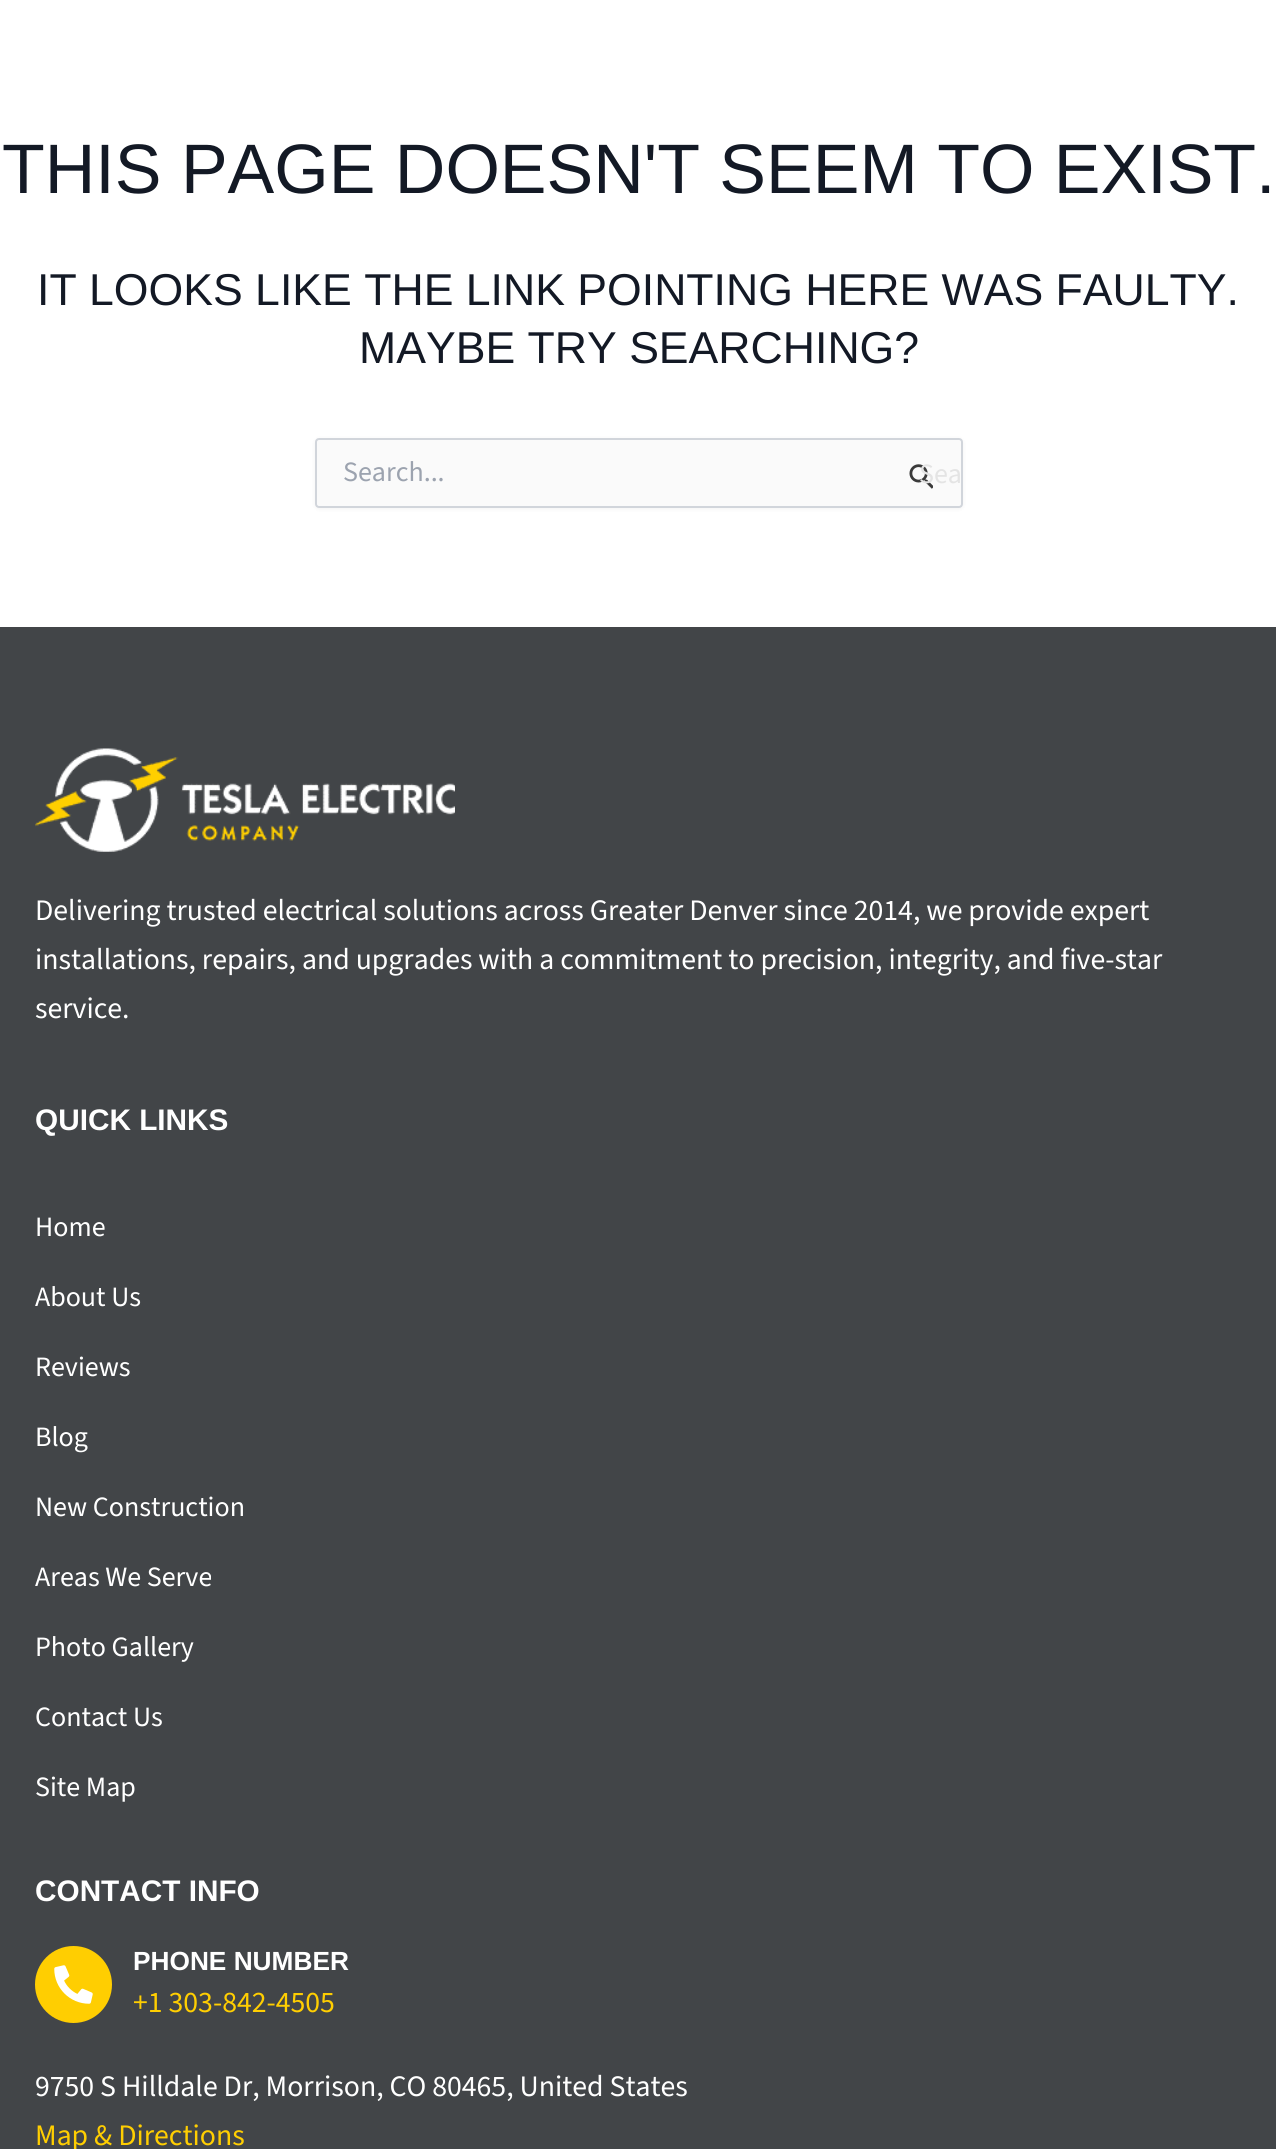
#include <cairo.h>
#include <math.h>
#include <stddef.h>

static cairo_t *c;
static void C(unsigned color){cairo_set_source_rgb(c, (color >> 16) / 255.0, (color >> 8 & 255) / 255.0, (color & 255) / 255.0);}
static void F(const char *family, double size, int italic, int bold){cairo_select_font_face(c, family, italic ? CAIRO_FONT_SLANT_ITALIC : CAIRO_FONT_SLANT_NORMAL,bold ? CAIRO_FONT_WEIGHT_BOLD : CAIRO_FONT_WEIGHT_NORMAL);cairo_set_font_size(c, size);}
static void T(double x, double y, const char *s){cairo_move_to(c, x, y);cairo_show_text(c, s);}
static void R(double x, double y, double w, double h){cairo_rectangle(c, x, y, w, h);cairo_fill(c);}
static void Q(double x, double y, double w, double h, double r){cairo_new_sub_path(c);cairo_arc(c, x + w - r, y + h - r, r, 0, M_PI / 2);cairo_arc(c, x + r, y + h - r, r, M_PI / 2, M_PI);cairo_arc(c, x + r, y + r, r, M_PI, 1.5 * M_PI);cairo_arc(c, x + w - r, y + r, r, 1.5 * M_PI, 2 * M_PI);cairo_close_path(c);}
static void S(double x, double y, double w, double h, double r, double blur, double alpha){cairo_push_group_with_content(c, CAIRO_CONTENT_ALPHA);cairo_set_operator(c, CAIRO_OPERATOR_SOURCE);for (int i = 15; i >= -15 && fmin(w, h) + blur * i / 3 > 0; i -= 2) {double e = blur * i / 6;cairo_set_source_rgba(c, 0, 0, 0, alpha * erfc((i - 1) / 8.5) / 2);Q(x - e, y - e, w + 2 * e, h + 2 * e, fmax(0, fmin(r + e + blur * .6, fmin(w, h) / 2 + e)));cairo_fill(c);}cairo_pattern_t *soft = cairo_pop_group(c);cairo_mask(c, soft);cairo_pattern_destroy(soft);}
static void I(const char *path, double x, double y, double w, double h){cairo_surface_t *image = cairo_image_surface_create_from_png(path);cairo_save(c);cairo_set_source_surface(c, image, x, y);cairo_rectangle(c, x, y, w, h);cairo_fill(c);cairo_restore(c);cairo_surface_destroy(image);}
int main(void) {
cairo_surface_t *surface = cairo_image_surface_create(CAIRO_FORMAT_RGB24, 1276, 2149);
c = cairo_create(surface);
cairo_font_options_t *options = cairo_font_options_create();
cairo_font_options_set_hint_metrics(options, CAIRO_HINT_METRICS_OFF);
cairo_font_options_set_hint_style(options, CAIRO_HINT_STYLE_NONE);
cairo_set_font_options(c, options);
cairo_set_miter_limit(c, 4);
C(0xffffff);
cairo_paint(c);
F("Liberation Sans",70,0,0);
C(0x131925);
T(2,193,"THIS PAGE DOESN'T SEEM TO EXIST.");
F("Liberation Sans",44.6,0,0);
T(37,305,"IT LOOKS LIKE THE LINK POINTING HERE WAS FAULTY.");
T(359,363,"MAYBE TRY SEARCHING?");
C(0x000000);
S(315,439,648,70,4,2,.05);
C(0xfafafa);
Q(316,439,646,68,3);
cairo_fill_preserve(c);
C(0xd1d5db);
cairo_stroke(c);
F("Source Sans 3 ExtraLight",28,0,0);
C(0x9ca3af);
T(343,481,"Search...");
I("1.png",909,464,24,25);
C(0xe4e4e4);
T(919,483,"Sea");
C(0x424548);
R(0,627,1276,1522);
I("2.png",35,748,420,104);
F("Source Sans 3 ExtraLight",29.75,0,0);
C(0xffffff);
T(35,920,"Delivering trusted electrical solutions across Greater Denver since 2014, we provide expert");
T(35,969,"installations, repairs, and upgrades with a commitment to precision, integrity, and five-star");
T(35,1018,"service.");
F("Liberation Sans",29.75,0,1);
T(35,1130,"QUICK LINKS");
F("Source Sans 3 ExtraLight",28,0,0);
T(35,1236,"Home");
T(35,1306,"About Us");
T(35,1376,"Reviews");
T(35,1446,"Blog");
T(35,1516,"New Construction");
T(35,1586,"Areas We Serve");
T(35,1656,"Photo Gallery");
T(35,1726,"Contact Us");
T(35,1796,"Site Map");
F("Liberation Sans",29.75,0,1);
T(35,1901,"CONTACT INFO");
C(0xffce01);
cairo_new_path(c);
cairo_arc(c,73.5,1984.5,38.5,0,2 * M_PI);
cairo_fill(c);
I("3.png",54,1965,39,39);
F("Liberation Sans",26.25,0,1);
C(0xffffff);
T(133,1970,"PHONE NUMBER");
F("Source Sans 3 ExtraLight",29.75,0,0);
C(0xffce01);
T(133,2012,"+1 303-842-4505");
C(0xffffff);
T(35,2096,"9750 S Hilldale Dr, Morrison, CO 80465, United States");
C(0xffce01);
T(35,2145,"Map & Directions");
cairo_surface_write_to_png(surface, "o.png");
cairo_font_options_destroy(options);
cairo_destroy(c);
cairo_surface_destroy(surface);
return 0;
}
